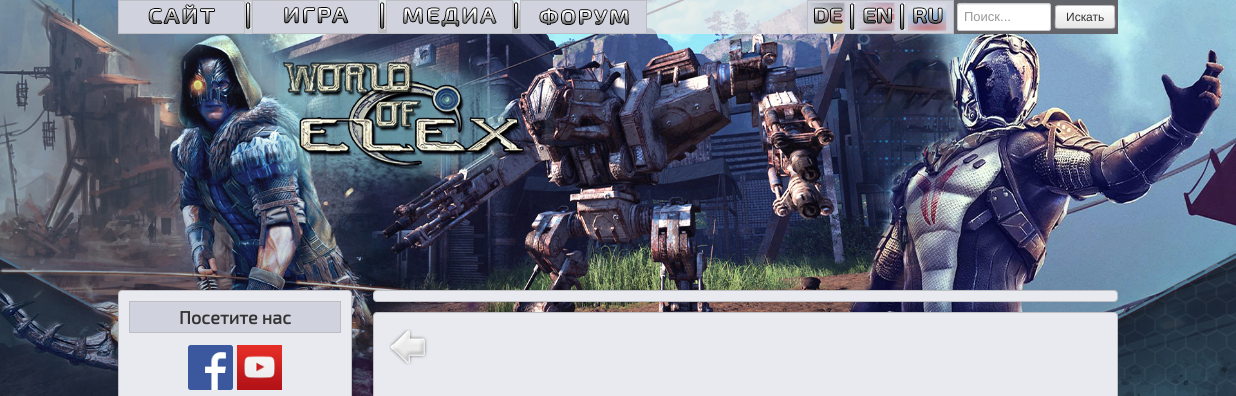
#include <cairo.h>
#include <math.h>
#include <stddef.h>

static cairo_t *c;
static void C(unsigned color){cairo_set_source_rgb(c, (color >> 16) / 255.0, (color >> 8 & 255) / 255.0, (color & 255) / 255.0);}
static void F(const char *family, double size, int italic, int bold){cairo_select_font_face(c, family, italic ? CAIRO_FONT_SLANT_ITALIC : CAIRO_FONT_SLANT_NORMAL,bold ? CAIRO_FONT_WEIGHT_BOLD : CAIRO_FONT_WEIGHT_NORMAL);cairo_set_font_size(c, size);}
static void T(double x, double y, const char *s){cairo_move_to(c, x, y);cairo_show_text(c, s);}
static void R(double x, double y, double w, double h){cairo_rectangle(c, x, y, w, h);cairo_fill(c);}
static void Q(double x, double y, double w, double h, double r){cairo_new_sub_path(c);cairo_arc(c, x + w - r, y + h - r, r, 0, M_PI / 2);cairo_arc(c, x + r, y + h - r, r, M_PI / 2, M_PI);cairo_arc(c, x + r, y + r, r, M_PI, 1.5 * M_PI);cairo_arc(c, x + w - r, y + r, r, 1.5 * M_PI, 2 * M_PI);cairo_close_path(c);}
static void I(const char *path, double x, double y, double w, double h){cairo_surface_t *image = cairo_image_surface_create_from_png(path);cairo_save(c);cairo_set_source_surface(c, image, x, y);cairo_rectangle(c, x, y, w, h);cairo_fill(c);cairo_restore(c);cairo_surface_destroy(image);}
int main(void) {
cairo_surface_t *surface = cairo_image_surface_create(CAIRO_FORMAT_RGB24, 1236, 396);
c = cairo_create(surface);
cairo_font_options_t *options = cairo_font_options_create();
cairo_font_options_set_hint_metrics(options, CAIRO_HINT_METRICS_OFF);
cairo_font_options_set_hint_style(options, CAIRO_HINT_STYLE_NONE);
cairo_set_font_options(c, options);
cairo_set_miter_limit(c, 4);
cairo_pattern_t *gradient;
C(0xffffff);
cairo_paint(c);
I("1.png",0,0,1236,396);
cairo_set_source_rgba(c,0.925,0.91,0.902,0.75);
R(245,0,562,34);
C(0xd0d3de);
cairo_rectangle(c,118.5,.5,126,33);
cairo_fill_preserve(c);
C(0xbcbec3);
cairo_set_line_width(c,1);
cairo_stroke(c);
I("2.png",148,4,67,20);
I("3.png",246,2,5,27);
C(0xd0d3de);
cairo_rectangle(c,252.5,.5,126,33);
cairo_fill_preserve(c);
C(0xbcbec3);
cairo_stroke(c);
I("4.png",284,7,65,17);
I("3.png",380,2,5,27);
C(0xd0d3de);
cairo_rectangle(c,386.5,.5,126,33);
cairo_fill_preserve(c);
C(0xbcbec3);
cairo_stroke(c);
I("5.png",403,7,94,20);
I("3.png",514,2,5,27);
C(0xd0d3de);
cairo_rectangle(c,520.5,.5,126,33);
cairo_fill_preserve(c);
C(0xbcbec3);
cairo_stroke(c);
I("6.png",539,8,90,17);
C(0xd0d3de);
cairo_rectangle(c,807.5,.5,146,33);
cairo_fill_preserve(c);
C(0xbcbec3);
cairo_stroke(c);
I("7.png",810,2,36,31);
I("3.png",850,3,5,27);
I("8.png",858,1,38,31);
I("3.png",900,3,5,27);
I("9.png",908,3,39,29);
C(0x63656b);
R(954,0,164,34);
C(0xffffff);
Q(957,3,94,28,3);
cairo_fill(c);
C(0xececec);
cairo_new_path(c);
cairo_move_to(c,960,5);
cairo_line_to(c,1048,5);
cairo_curve_to(c,1049,5,1050,6,1050,7);
cairo_curve_to(c,1050,6,1050,4,1048,4);
cairo_line_to(c,975,4);
cairo_curve_to(c,972,4,958,0,958,7);
cairo_curve_to(c,958,6,959,5,960,5);
cairo_close_path(c);
cairo_fill(c);
Q(957.5,3.5,93,27,2.5);
C(0xcccccc);
cairo_stroke(c);
F("Liberation Sans",13,0,0);
C(0x999999);
T(964,21,"Поиск...");
cairo_save(c);
Q(1055,5,60,24,3);
cairo_clip(c);
gradient = cairo_pattern_create_linear(1085,6,1085,28);
cairo_pattern_add_color_stop_rgba(gradient,0,1,1,1,1);
cairo_pattern_add_color_stop_rgba(gradient,1,0.902,0.902,0.902,1);
cairo_set_source(c,gradient);
cairo_pattern_destroy(gradient);
R(1055,6,60,22);
cairo_restore(c);
C(0xfefefe);
cairo_new_path(c);
cairo_move_to(c,1058,7);
cairo_line_to(c,1112,7);
cairo_curve_to(c,1113,7,1114,8,1114,9);
cairo_curve_to(c,1114,4,1107,6,1103,6);
cairo_line_to(c,1067,6);
cairo_curve_to(c,1063,6,1056,4,1056,9);
cairo_curve_to(c,1056,8,1057,7,1058,7);
cairo_close_path(c);
cairo_fill(c);
cairo_new_path(c);
cairo_move_to(c,1114,28);
cairo_line_to(c,1112,28.5);
cairo_line_to(c,1058,28.5);
cairo_line_to(c,1056,28);
C(0xa2a2a2);
cairo_stroke(c);
cairo_new_path(c);
cairo_move_to(c,1056,28);
cairo_curve_to(c,1054.5,26,1055.5,19,1055.5,17);
cairo_curve_to(c,1055.5,3.5,1053.5,5.5,1067,5.5);
cairo_line_to(c,1103,5.5);
cairo_curve_to(c,1116.5,5.5,1114.5,3.5,1114.5,17);
cairo_curve_to(c,1114.5,19,1115.5,26,1114,28);
C(0xbbbbbb);
cairo_stroke(c);
F("Liberation Sans",12,0,0);
C(0x333333);
T(1066,21,"Искать");
C(0xe8eaf0);
Q(118.5,290.5,233,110,3.5);
cairo_fill_preserve(c);
C(0xbcbec3);
cairo_stroke(c);
C(0xd0d3de);
cairo_rectangle(c,129.5,301.5,211,31);
cairo_fill_preserve(c);
C(0xbcbec3);
cairo_stroke(c);
F("Exo 2",18,0,1);
C(0x333333);
T(179,324,"Посетите нас");
I("10.png",188,345,45,45);
I("11.png",237,345,45,45);
C(0xe8eaf0);
Q(373.5,290.5,744,11,3.5);
cairo_fill_preserve(c);
C(0xbcbec3);
cairo_stroke(c);
C(0xe8eaf0);
Q(373.5,312.5,744,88,3.5);
cairo_fill_preserve(c);
C(0xbcbec3);
cairo_stroke(c);
I("12.png",389,329,39,36);
cairo_surface_write_to_png(surface, "o.png");
cairo_font_options_destroy(options);
cairo_destroy(c);
cairo_surface_destroy(surface);
return 0;
}
